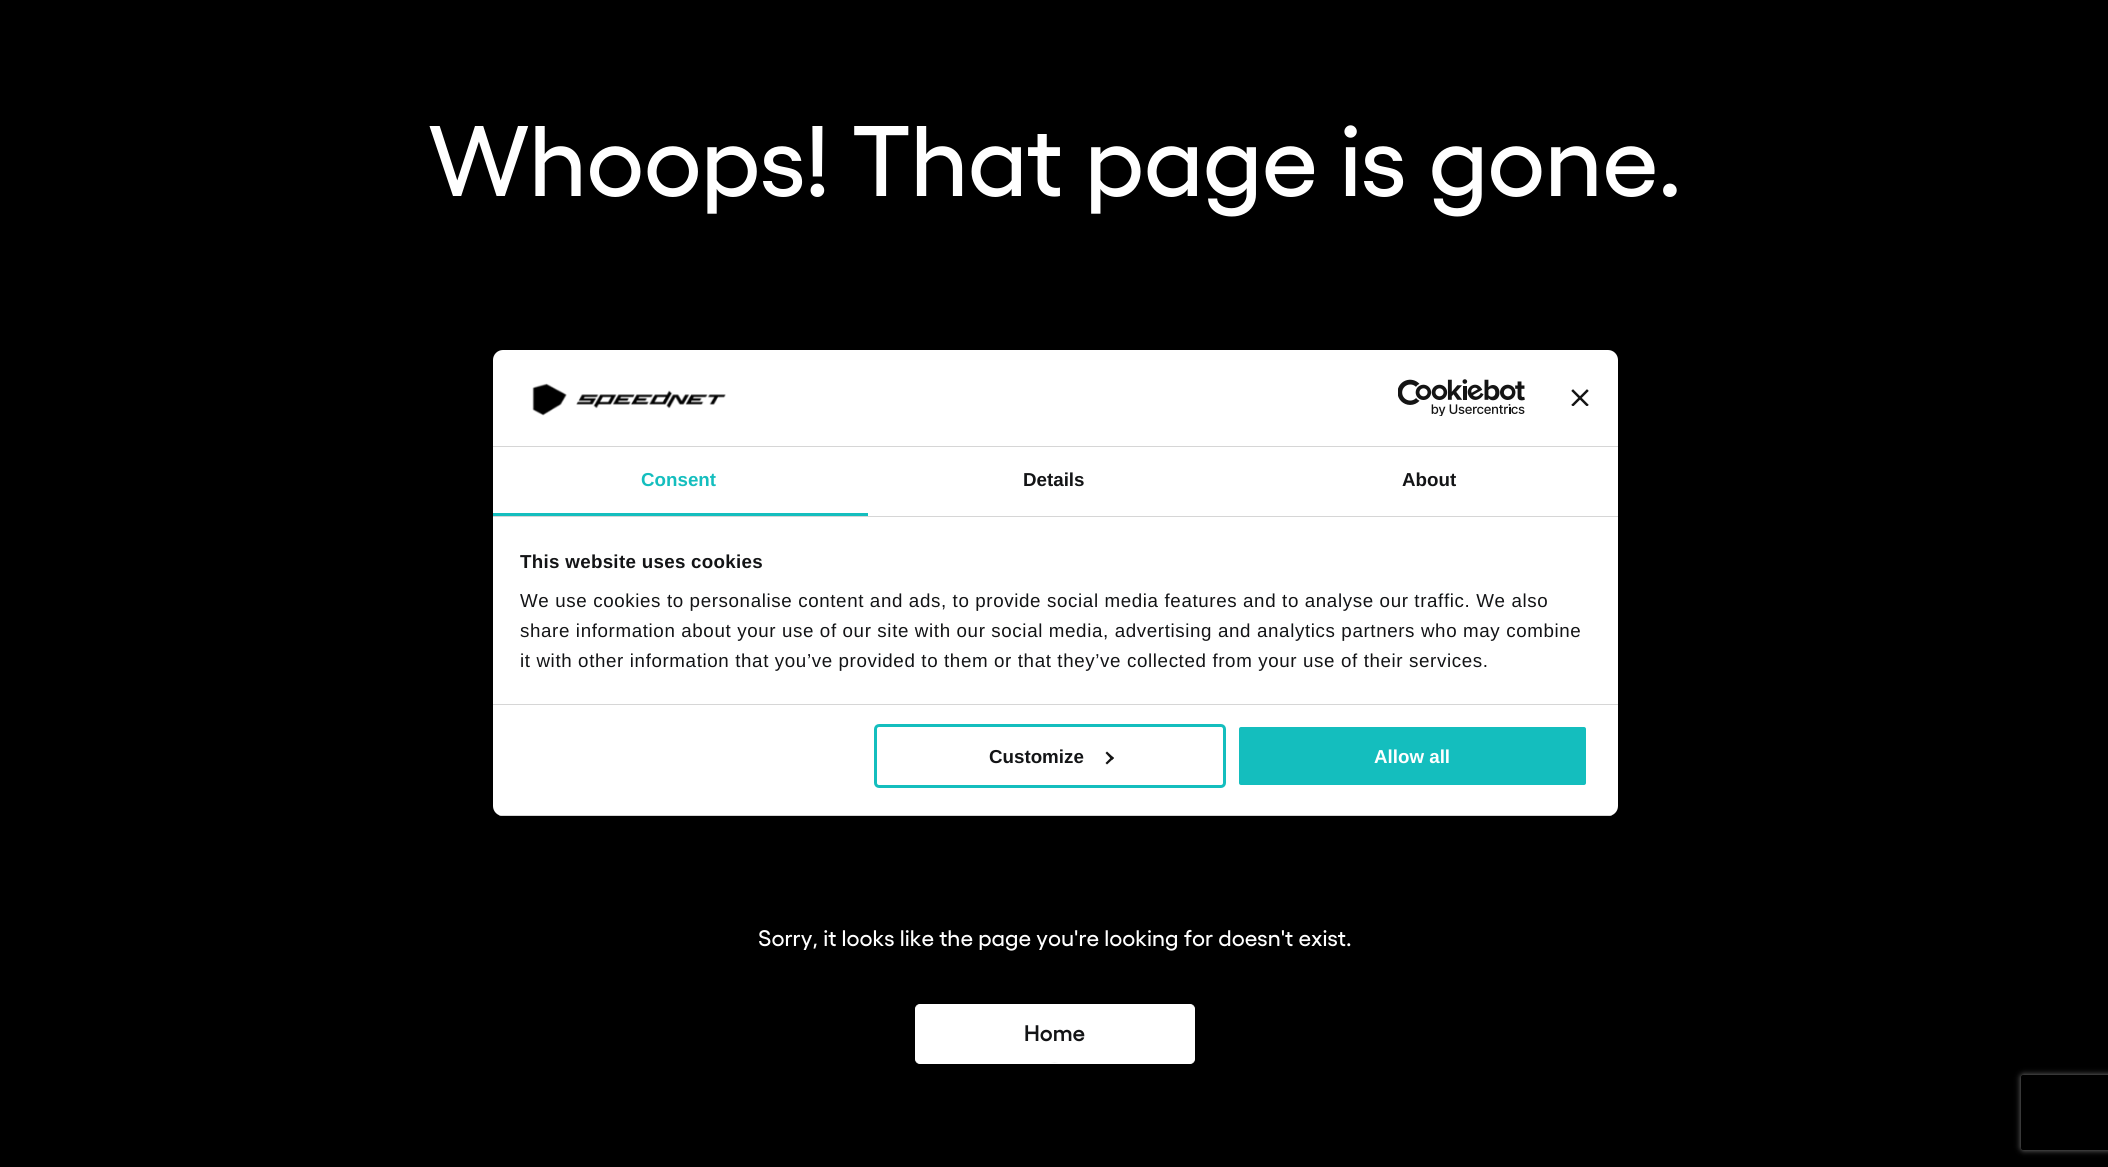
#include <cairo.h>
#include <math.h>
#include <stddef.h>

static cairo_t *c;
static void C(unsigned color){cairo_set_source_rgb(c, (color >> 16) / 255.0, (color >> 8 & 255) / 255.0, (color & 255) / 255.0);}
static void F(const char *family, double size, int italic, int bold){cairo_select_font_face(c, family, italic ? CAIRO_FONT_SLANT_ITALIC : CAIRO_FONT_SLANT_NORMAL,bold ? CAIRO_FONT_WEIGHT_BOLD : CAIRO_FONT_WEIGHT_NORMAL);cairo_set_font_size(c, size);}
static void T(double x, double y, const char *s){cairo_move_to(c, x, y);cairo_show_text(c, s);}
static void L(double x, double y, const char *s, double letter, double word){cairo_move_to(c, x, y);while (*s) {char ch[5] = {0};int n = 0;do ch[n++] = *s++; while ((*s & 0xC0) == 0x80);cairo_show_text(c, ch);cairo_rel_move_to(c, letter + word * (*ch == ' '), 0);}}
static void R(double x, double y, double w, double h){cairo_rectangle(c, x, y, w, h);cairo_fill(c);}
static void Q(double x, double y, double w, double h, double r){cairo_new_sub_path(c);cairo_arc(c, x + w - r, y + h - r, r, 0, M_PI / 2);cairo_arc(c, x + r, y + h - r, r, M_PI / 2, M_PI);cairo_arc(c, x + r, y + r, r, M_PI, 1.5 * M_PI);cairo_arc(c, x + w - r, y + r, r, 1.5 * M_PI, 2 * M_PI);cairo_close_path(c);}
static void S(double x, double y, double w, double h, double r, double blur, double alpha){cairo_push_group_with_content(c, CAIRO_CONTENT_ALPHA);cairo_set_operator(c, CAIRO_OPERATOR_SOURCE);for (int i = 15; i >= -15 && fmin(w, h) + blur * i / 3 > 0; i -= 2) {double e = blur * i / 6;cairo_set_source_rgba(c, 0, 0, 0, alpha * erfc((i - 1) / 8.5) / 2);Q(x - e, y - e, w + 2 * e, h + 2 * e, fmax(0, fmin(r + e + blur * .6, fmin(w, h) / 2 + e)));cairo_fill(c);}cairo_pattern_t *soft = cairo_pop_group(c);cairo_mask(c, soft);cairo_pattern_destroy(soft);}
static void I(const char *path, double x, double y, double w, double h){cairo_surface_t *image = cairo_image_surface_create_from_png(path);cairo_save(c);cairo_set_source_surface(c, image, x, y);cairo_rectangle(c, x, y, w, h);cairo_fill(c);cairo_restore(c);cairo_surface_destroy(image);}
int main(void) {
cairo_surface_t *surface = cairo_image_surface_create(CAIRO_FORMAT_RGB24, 2108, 1167);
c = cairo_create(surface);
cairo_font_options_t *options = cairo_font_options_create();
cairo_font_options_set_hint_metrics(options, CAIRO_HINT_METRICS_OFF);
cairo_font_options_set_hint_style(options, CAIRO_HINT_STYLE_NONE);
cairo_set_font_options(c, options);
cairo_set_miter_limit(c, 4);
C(0x000000);
cairo_paint(c);
F("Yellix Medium",100,0,0);
C(0xffffff);
L(428,196,"Whoops! That page is gone.",-.65,0);
F("Yellix Medium",22.5,0,0);
T(758,946,"Sorry, it looks like the page you're looking for doesn't exist.");
Q(915.5,1004.5,279,59,4.5);
cairo_fill_preserve(c);
cairo_set_line_width(c,1);
cairo_stroke(c);
F("Yellix SemiBold",22.5,0,0);
C(0x131416);
T(1024,1041,"Home");
C(0xe6e6e6);
cairo_new_path(c);
cairo_move_to(c,1054.5,1062.5);
cairo_line_to(c,1058.5,1063);
cairo_line_to(c,1050.5,1063);
cairo_close_path(c);
cairo_fill(c);
C(0xffffff);
Q(493,350,1125,466,10);
cairo_fill(c);
C(0xd6d6d6);
R(493,446,1125,1);
I("1.png",532,383,194,33);
I("2.png",1398,379,127,37);
I("3.png",1571,389,18,17);
R(493,516,1125,1);
C(0x14bebe);
R(493,513,375,3);
F("Liberation Sans",18.75,0,1);
T(641,486,"Consent");
C(0x131416);
T(1023,486,"Details");
T(1402,486,"About");
C(0xd6d6d6);
R(493,704,1125,1);
C(0x131416);
L(520,568,"This website uses cookies",.3,0);
F("Liberation Sans",18.75,0,0);
L(520,607,"We use cookies to personalise content and ads, to provide social media features and to analyse our traffic. We also",.62,0);
L(520,637,"share information about your use of our site with our social media, advertising and analytics partners who may combine",.62,0);
L(520,667,"it with other information that you’ve provided to them or that they’ve collected from your use of their services.",.62,0);
cairo_save(c);
Q(493,350,1125,466,10);
cairo_clip(c);
C(0xd6d6d6);
R(493,815,1125,1);
cairo_restore(c);
Q(875.5,725.5,349,61,3.5);
C(0x14bebe);
cairo_set_line_width(c,3);
cairo_stroke(c);
F("Liberation Sans",18.75,0,1);
C(0x131416);
T(989,763,"Customize");
C(0x141414);
cairo_new_path(c);
cairo_move_to(c,1107,751.5);
cairo_line_to(c,1114,758);
cairo_line_to(c,1112,760);
cairo_line_to(c,1105.5,753);
cairo_close_path(c);
cairo_fill(c);
cairo_new_path(c);
cairo_move_to(c,1112,756.5);
cairo_line_to(c,1114,758);
cairo_line_to(c,1107,764.5);
cairo_line_to(c,1105.5,763);
cairo_close_path(c);
cairo_fill(c);
C(0x14bebe);
Q(1237.5,725.5,350,61,3.5);
cairo_fill_preserve(c);
C(0xffffff);
cairo_stroke(c);
T(1374,763,"Allow all");
cairo_save(c);
cairo_set_fill_rule(c,CAIRO_FILL_RULE_EVEN_ODD);
cairo_new_path(c);
cairo_move_to(c,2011,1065);
cairo_line_to(c,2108,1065);
cairo_line_to(c,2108,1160);
cairo_line_to(c,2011,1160);
cairo_close_path(c);
cairo_move_to(c,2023.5,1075);
cairo_line_to(c,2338.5,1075);
cairo_curve_to(c,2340,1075,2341,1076,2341,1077.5);
cairo_line_to(c,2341,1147.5);
cairo_curve_to(c,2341,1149,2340,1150,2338.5,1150);
cairo_line_to(c,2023.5,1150);
cairo_curve_to(c,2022,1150,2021,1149,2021,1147.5);
cairo_line_to(c,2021,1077.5);
cairo_curve_to(c,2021,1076,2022,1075,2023.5,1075);
cairo_close_path(c);
cairo_clip(c);
C(0x808080);
S(2021,1075,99,75,2.5,3,1);
cairo_restore(c);
cairo_surface_write_to_png(surface, "o.png");
cairo_font_options_destroy(options);
cairo_destroy(c);
cairo_surface_destroy(surface);
return 0;
}
